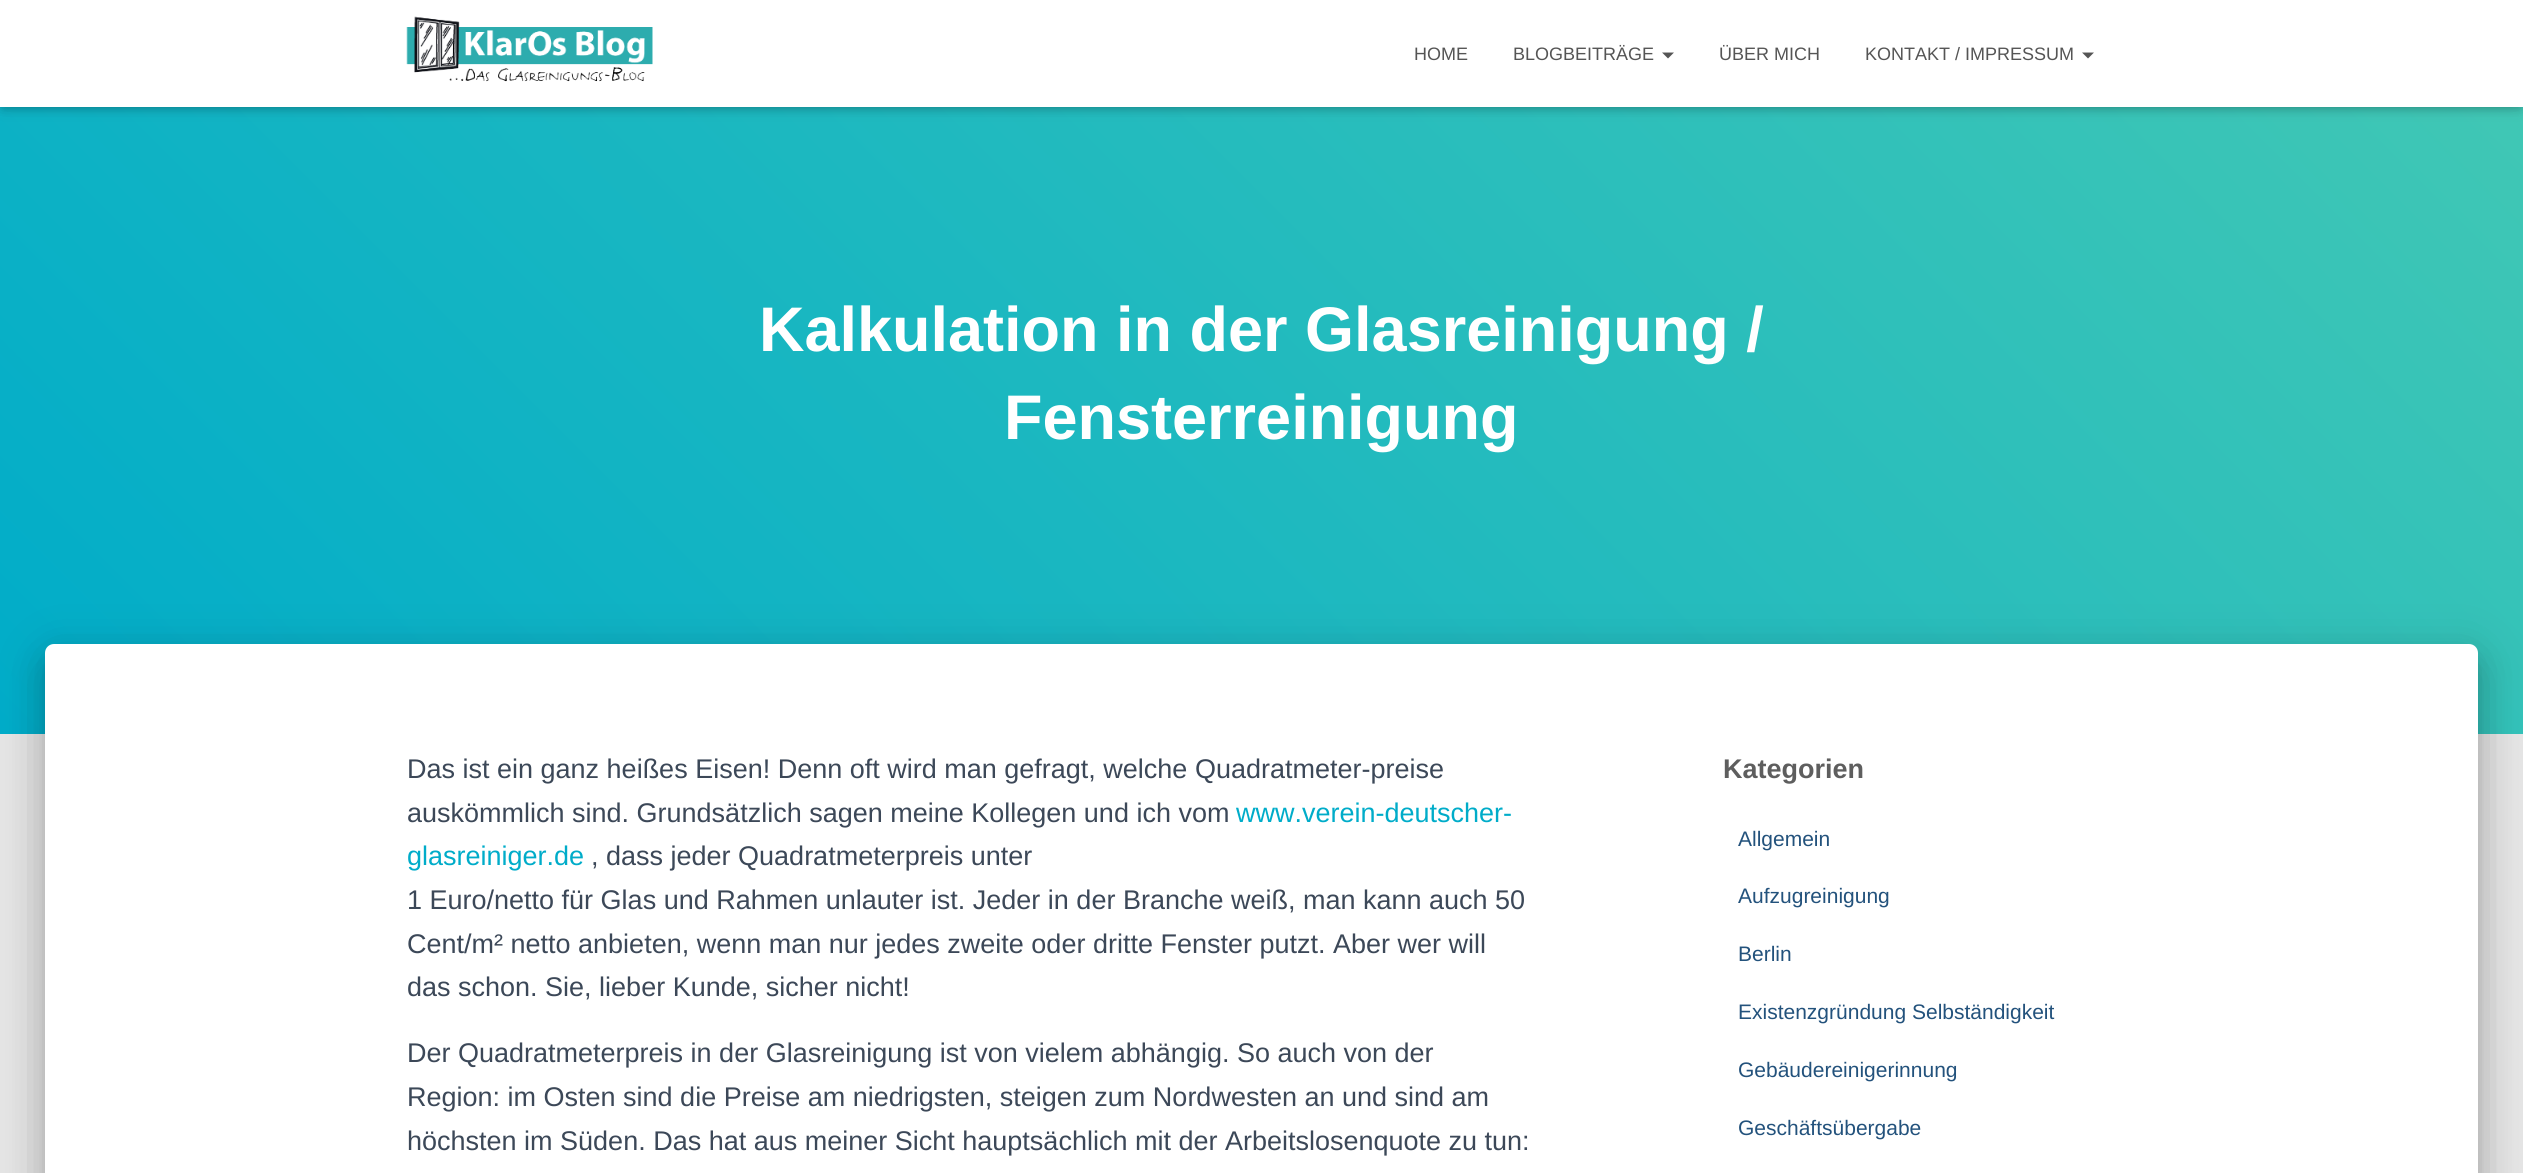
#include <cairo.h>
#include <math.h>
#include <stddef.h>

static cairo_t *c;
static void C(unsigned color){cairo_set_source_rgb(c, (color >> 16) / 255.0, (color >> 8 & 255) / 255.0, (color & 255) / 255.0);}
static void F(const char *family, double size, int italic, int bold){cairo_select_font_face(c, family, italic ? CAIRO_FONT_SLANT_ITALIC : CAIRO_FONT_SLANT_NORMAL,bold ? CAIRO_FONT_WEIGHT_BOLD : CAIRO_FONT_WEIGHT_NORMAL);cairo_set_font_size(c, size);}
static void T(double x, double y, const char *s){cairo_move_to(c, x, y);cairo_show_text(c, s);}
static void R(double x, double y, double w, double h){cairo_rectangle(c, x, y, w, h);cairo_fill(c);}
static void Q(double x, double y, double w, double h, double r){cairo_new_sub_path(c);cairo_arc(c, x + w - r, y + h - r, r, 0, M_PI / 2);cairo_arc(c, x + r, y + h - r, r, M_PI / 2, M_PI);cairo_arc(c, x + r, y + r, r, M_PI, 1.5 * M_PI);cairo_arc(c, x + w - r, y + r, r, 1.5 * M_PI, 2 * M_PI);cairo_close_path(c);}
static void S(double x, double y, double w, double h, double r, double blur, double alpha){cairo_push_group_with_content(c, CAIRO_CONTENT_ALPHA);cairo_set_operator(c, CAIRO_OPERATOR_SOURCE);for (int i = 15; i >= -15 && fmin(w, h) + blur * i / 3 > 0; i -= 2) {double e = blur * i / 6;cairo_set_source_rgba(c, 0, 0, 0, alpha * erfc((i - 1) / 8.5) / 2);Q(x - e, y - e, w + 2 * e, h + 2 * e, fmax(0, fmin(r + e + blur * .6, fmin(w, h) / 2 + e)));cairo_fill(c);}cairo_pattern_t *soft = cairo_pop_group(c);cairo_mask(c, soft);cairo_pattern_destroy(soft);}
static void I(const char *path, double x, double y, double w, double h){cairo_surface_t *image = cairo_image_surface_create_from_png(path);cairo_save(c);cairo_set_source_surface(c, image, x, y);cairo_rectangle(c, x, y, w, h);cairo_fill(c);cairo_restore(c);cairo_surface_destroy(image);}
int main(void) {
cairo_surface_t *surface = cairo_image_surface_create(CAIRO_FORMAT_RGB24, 2523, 1173);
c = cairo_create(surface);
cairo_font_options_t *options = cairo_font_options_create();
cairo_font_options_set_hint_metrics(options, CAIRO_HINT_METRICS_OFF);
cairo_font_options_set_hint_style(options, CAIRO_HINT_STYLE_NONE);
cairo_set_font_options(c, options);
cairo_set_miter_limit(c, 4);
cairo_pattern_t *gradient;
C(0xe5e5e5);
cairo_paint(c);
gradient = cairo_pattern_create_linear(447,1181,2076,-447);
cairo_pattern_add_color_stop_rgba(gradient,0,0,0.675,0.788,1);
cairo_pattern_add_color_stop_rgba(gradient,1,0.259,0.784,0.706,1);
cairo_set_source(c,gradient);
cairo_pattern_destroy(gradient);
R(0,107,2523,627);
C(0x000000);
S(3,9,2517,101,0,4,.1);
S(0,2,2523,106,0,7.5,.12);
S(9,11,2505,88,0,7.5,.42);
C(0xffffff);
R(0,0,2523,107);
I("1.png",406,16,247,66);
F("Liberation Sans",18,0,0);
C(0x555555);
T(1414,60,"HOME");
T(1513,60,"BLOGBEITRÄGE");
cairo_new_path(c);
cairo_move_to(c,1662,52.5);
cairo_line_to(c,1674,52.5);
cairo_line_to(c,1668,58.5);
cairo_close_path(c);
cairo_fill(c);
T(1719,60,"ÜBER MICH");
T(1865,60,"KONTAKT / IMPRESSUM");
cairo_new_path(c);
cairo_move_to(c,2082,52.5);
cairo_line_to(c,2094,52.5);
cairo_line_to(c,2088,58.5);
cairo_close_path(c);
cairo_fill(c);
F("Liberation Sans",63,0,1);
C(0xffffff);
T(759,351,"Kalkulation in der Glasreinigung /");
T(1004,439,"Fensterreinigung");
C(0x000000);
S(53,663,2418,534,1.5,7.5,.2);
S(38,645,2448,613,17,22.5,.12);
S(42,665,2439,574,12,18,.14);
C(0xffffff);
cairo_new_path(c);
cairo_move_to(c,54,644);
cairo_line_to(c,2469,644);
cairo_curve_to(c,2474,644,2478,648,2478,653);
cairo_line_to(c,2478,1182);
cairo_line_to(c,45,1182);
cairo_line_to(c,45,653);
cairo_curve_to(c,45,648,49,644,54,644);
cairo_close_path(c);
cairo_fill(c);
F("Liberation Sans",27,0,0);
C(0x3c4858);
T(407,778,"Das ist ein ganz heißes Eisen! Denn oft wird man gefragt, welche Quadratmeter-preise");
T(407,822,"auskömmlich sind. Grundsätzlich sagen meine Kollegen und ich vom");
C(0x00acc9);
T(1236,822,"www.verein-deutscher-");
T(407,865,"glasreiniger.de");
C(0x3c4858);
T(591,865,", dass jeder Quadratmeterpreis unter");
T(407,909,"1 Euro/netto für Glas und Rahmen unlauter ist. Jeder in der Branche weiß, man kann auch 50");
T(407,953,"Cent/m² netto anbieten, wenn man nur jedes zweite oder dritte Fenster putzt. Aber wer will");
T(407,996,"das schon. Sie, lieber Kunde, sicher nicht!");
T(407,1062,"Der Quadratmeterpreis in der Glasreinigung ist von vielem abhängig. So auch von der");
T(407,1106,"Region: im Osten sind die Preise am niedrigsten, steigen zum Nordwesten an und sind am");
T(407,1150,"höchsten im Süden. Das hat aus meiner Sicht hauptsächlich mit der Arbeitslosenquote zu tun:");
F("Liberation Sans",27,0,1);
C(0x5e5e5e);
T(1723,778,"Kategorien");
F("Liberation Sans",21,0,0);
C(0x23527c);
T(1738,846,"Allgemein");
T(1738,903,"Aufzugreinigung");
T(1738,961,"Berlin");
T(1738,1019,"Existenzgründung Selbständigkeit");
T(1738,1077,"Gebäudereinigerinnung");
T(1738,1135,"Geschäftsübergabe");
cairo_surface_write_to_png(surface, "o.png");
cairo_font_options_destroy(options);
cairo_destroy(c);
cairo_surface_destroy(surface);
return 0;
}
